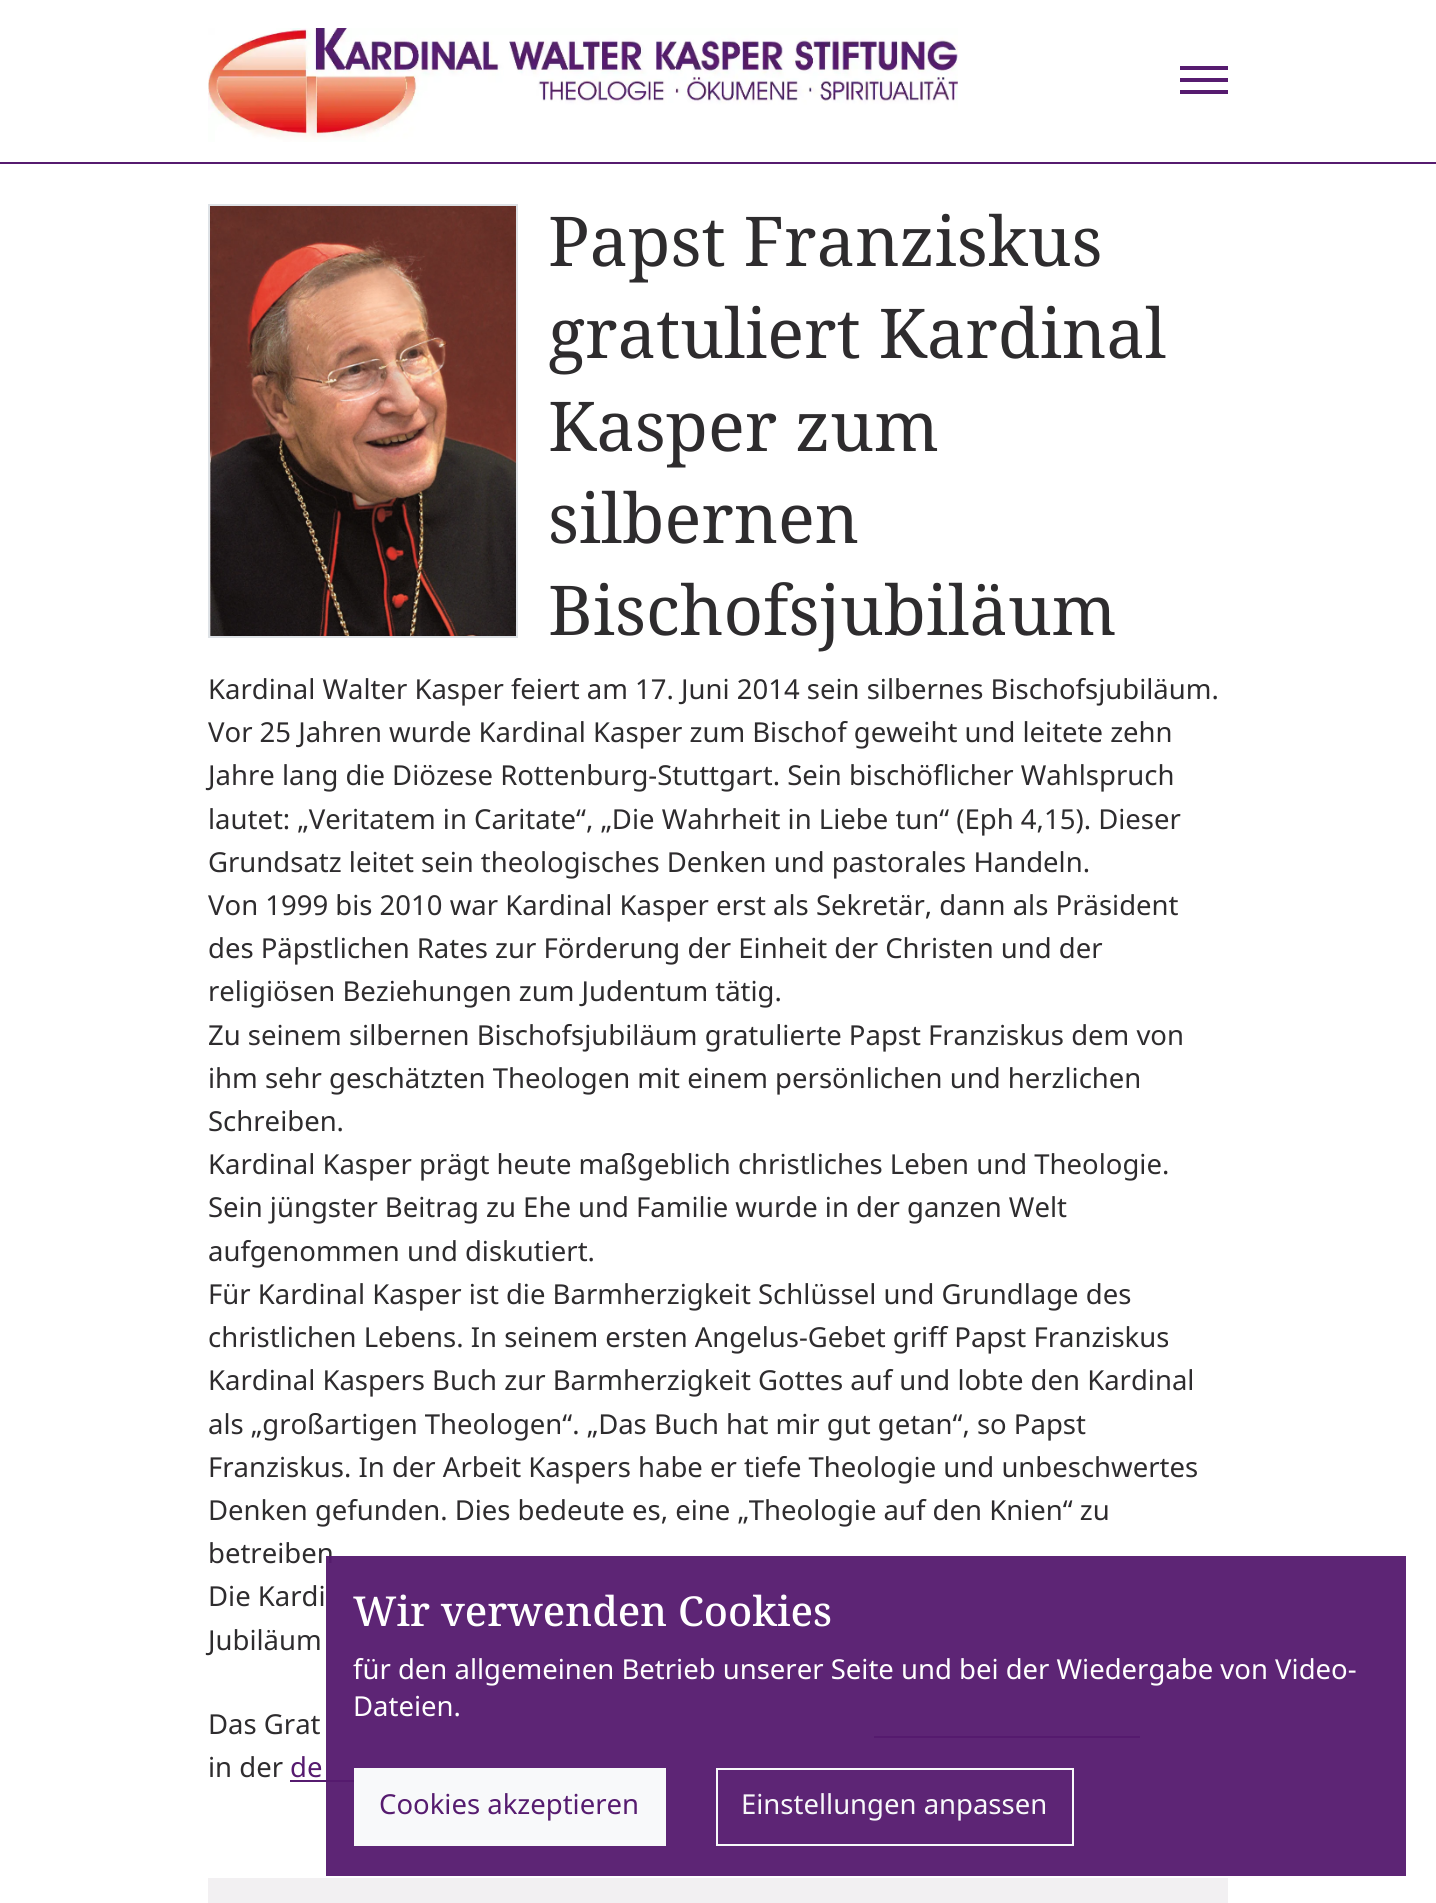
#include <cairo.h>
#include <math.h>
#include <stddef.h>

static cairo_t *c;
static void C(unsigned color){cairo_set_source_rgb(c, (color >> 16) / 255.0, (color >> 8 & 255) / 255.0, (color & 255) / 255.0);}
static void F(const char *family, double size, int italic, int bold){cairo_select_font_face(c, family, italic ? CAIRO_FONT_SLANT_ITALIC : CAIRO_FONT_SLANT_NORMAL,bold ? CAIRO_FONT_WEIGHT_BOLD : CAIRO_FONT_WEIGHT_NORMAL);cairo_set_font_size(c, size);}
static void T(double x, double y, const char *s){cairo_move_to(c, x, y);cairo_show_text(c, s);}
static void R(double x, double y, double w, double h){cairo_rectangle(c, x, y, w, h);cairo_fill(c);}
static void I(const char *path, double x, double y, double w, double h){cairo_surface_t *image = cairo_image_surface_create_from_png(path);cairo_save(c);cairo_set_source_surface(c, image, x, y);cairo_rectangle(c, x, y, w, h);cairo_fill(c);cairo_restore(c);cairo_surface_destroy(image);}
int main(void) {
cairo_surface_t *surface = cairo_image_surface_create(CAIRO_FORMAT_RGB24, 1436, 1903);
c = cairo_create(surface);
cairo_font_options_t *options = cairo_font_options_create();
cairo_font_options_set_hint_metrics(options, CAIRO_HINT_METRICS_OFF);
cairo_font_options_set_hint_style(options, CAIRO_HINT_STYLE_NONE);
cairo_set_font_options(c, options);
cairo_set_miter_limit(c, 4);
C(0xffffff);
cairo_paint(c);
C(0x561b6f);
R(0,162,1436,2);
I("1.png",208,28,750,114);
R(1180,78,48,4);
R(1180,66,48,4);
R(1180,90,48,4);
cairo_rectangle(c,209,205,308,432);
C(0xdee2e6);
cairo_stroke(c);
I("2.png",210,206,306,430);
F("Noto Serif",68.75,0,0);
C(0x2e2c2e);
T(548,266,"Papst Franziskus");
T(548,358,"gratuliert Kardinal");
T(548,451,"Kasper zum");
T(548,543,"silbernen");
T(548,635,"Bischofsjubiläum");
F("Noto Sans",27.5,0,0);
T(208,699,"Kardinal Walter Kasper feiert am 17. Juni 2014 sein silbernes Bischofsjubiläum.");
T(208,742,"Vor 25 Jahren wurde Kardinal Kasper zum Bischof geweiht und leitete zehn");
T(208,785,"Jahre lang die Diözese Rottenburg-Stuttgart. Sein bischöflicher Wahlspruch");
T(208,829,"lautet: „Veritatem in Caritate“, „Die Wahrheit in Liebe tun“ (Eph 4,15). Dieser");
T(208,872,"Grundsatz leitet sein theologisches Denken und pastorales Handeln.");
T(208,915,"Von 1999 bis 2010 war Kardinal Kasper erst als Sekretär, dann als Präsident");
T(208,958,"des Päpstlichen Rates zur Förderung der Einheit der Christen und der");
T(208,1001,"religiösen Beziehungen zum Judentum tätig.");
T(208,1045,"Zu seinem silbernen Bischofsjubiläum gratulierte Papst Franziskus dem von");
T(208,1088,"ihm sehr geschätzten Theologen mit einem persönlichen und herzlichen");
T(208,1131,"Schreiben.");
T(208,1174,"Kardinal Kasper prägt heute maßgeblich christliches Leben und Theologie.");
T(208,1217,"Sein jüngster Beitrag zu Ehe und Familie wurde in der ganzen Welt");
T(208,1261,"aufgenommen und diskutiert.");
T(208,1304,"Für Kardinal Kasper ist die Barmherzigkeit Schlüssel und Grundlage des");
T(208,1347,"christlichen Lebens. In seinem ersten Angelus-Gebet griff Papst Franziskus");
T(208,1390,"Kardinal Kaspers Buch zur Barmherzigkeit Gottes auf und lobte den Kardinal");
T(208,1434,"als „großartigen Theologen“. „Das Buch hat mir gut getan“, so Papst");
T(208,1477,"Franziskus. In der Arbeit Kaspers habe er tiefe Theologie und unbeschwertes");
T(208,1520,"Denken gefunden. Dies bedeute es, eine „Theologie auf den Knien“ zu");
T(208,1563,"betreiben");
T(208,1606,"Die Kardi");
T(208,1650,"Jubiläum");
T(208,1734,"Das Grat");
C(0x561b6f);
R(874,1736,266,2);
C(0x2e2c2e);
T(208,1777,"in der");
C(0x561b6f);
T(290,1777,"de");
R(290,1780,64,2);
C(0xf2f0f2);
R(208,1878,1020,25);
cairo_set_source_rgba(c,0.337,0.106,0.435,0.95);
R(326,1556,1080,320);
F("Noto Serif Medium",41.25,0,0);
C(0xffffff);
T(353,1626,"Wir verwenden Cookies");
F("Noto Sans",27.5,0,0);
T(353,1679,"für den allgemeinen Betrieb unserer Seite und bei der Wiedergabe von Video-");
T(353,1716,"Dateien.");
C(0xf8f9fa);
R(354,1768,312,78);
C(0x561b6f);
T(379,1814,"Cookies akzeptieren");
cairo_rectangle(c,717,1769,356,76);
C(0xf8f9fa);
cairo_stroke(c);
T(741,1814,"Einstellungen anpassen");
cairo_surface_write_to_png(surface, "o.png");
cairo_font_options_destroy(options);
cairo_destroy(c);
cairo_surface_destroy(surface);
return 0;
}
